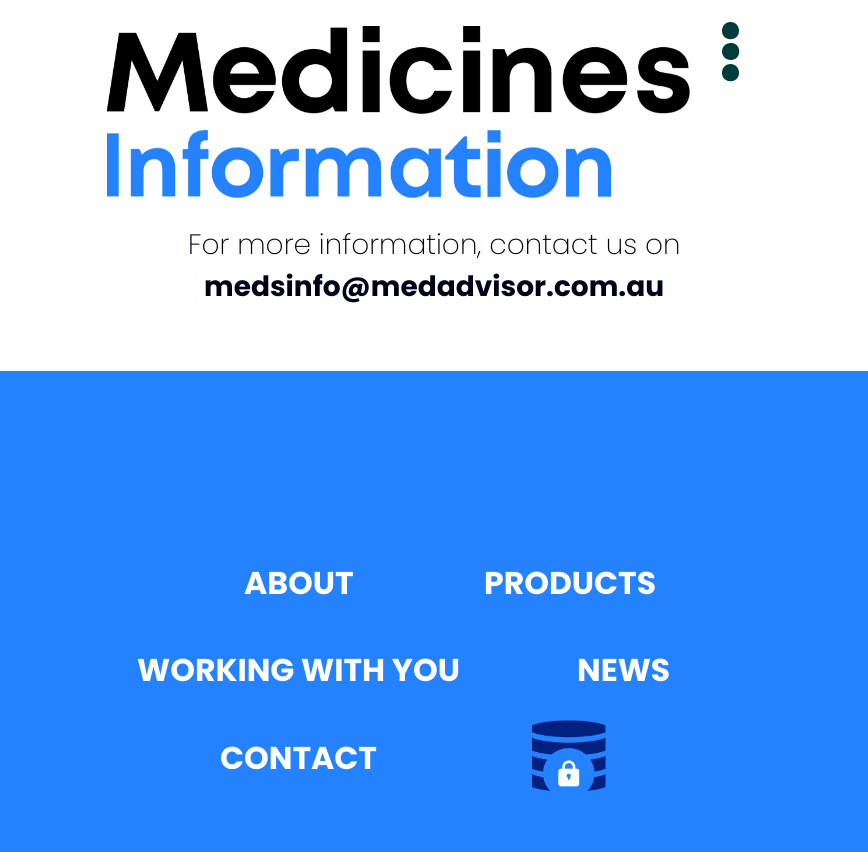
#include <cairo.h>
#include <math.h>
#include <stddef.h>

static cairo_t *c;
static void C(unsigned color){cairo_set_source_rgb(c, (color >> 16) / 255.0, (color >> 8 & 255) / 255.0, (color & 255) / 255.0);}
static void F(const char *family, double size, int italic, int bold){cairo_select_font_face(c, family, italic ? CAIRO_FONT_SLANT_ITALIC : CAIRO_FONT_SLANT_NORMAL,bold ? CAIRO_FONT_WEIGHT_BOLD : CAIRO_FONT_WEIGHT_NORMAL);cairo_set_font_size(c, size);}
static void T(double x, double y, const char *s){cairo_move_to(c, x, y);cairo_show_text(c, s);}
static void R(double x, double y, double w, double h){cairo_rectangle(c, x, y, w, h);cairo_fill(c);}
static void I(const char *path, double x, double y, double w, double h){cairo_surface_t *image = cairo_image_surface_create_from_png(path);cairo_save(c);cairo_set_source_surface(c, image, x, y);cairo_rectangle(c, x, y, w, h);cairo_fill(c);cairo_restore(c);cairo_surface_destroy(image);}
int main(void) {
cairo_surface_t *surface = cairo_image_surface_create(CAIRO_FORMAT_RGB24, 868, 852);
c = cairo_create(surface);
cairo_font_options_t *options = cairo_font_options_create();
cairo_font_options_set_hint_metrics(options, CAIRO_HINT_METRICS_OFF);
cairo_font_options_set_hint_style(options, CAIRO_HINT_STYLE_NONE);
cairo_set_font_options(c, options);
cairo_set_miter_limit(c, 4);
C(0xffffff);
cairo_paint(c);
I("1.png",107,26,583,172);
C(0x003c3b);
cairo_new_path(c);
cairo_move_to(c,731,43);
cairo_curve_to(c,742,43,742,60,731,60);
cairo_curve_to(c,719,60,719,43,731,43);
cairo_close_path(c);
cairo_move_to(c,722,31);
cairo_curve_to(c,722,42,739,42,739,31);
cairo_curve_to(c,739,19,722,19,722,31);
cairo_close_path(c);
cairo_move_to(c,722,73);
cairo_curve_to(c,722,84,739,84,739,73);
cairo_curve_to(c,739,61,722,61,722,73);
cairo_close_path(c);
cairo_fill(c);
F("Poppins ExtraLight",28,0,0);
C(0x000217);
T(188,254,"For more information, contact us on");
F("Poppins",28,0,1);
T(204,296,"medsinfo@medadvisor.com.au");
C(0x2482ff);
R(0,371,868,481);
F("Poppins",31.5,0,1);
C(0xffffff);
T(244,594,"ABOUT");
T(484,594,"PRODUCTS");
T(137,681,"WORKING WITH YOU");
T(577,681,"NEWS");
T(220,769,"CONTACT");
I("2.png",532,720,74,71);
cairo_surface_write_to_png(surface, "o.png");
cairo_font_options_destroy(options);
cairo_destroy(c);
cairo_surface_destroy(surface);
return 0;
}
